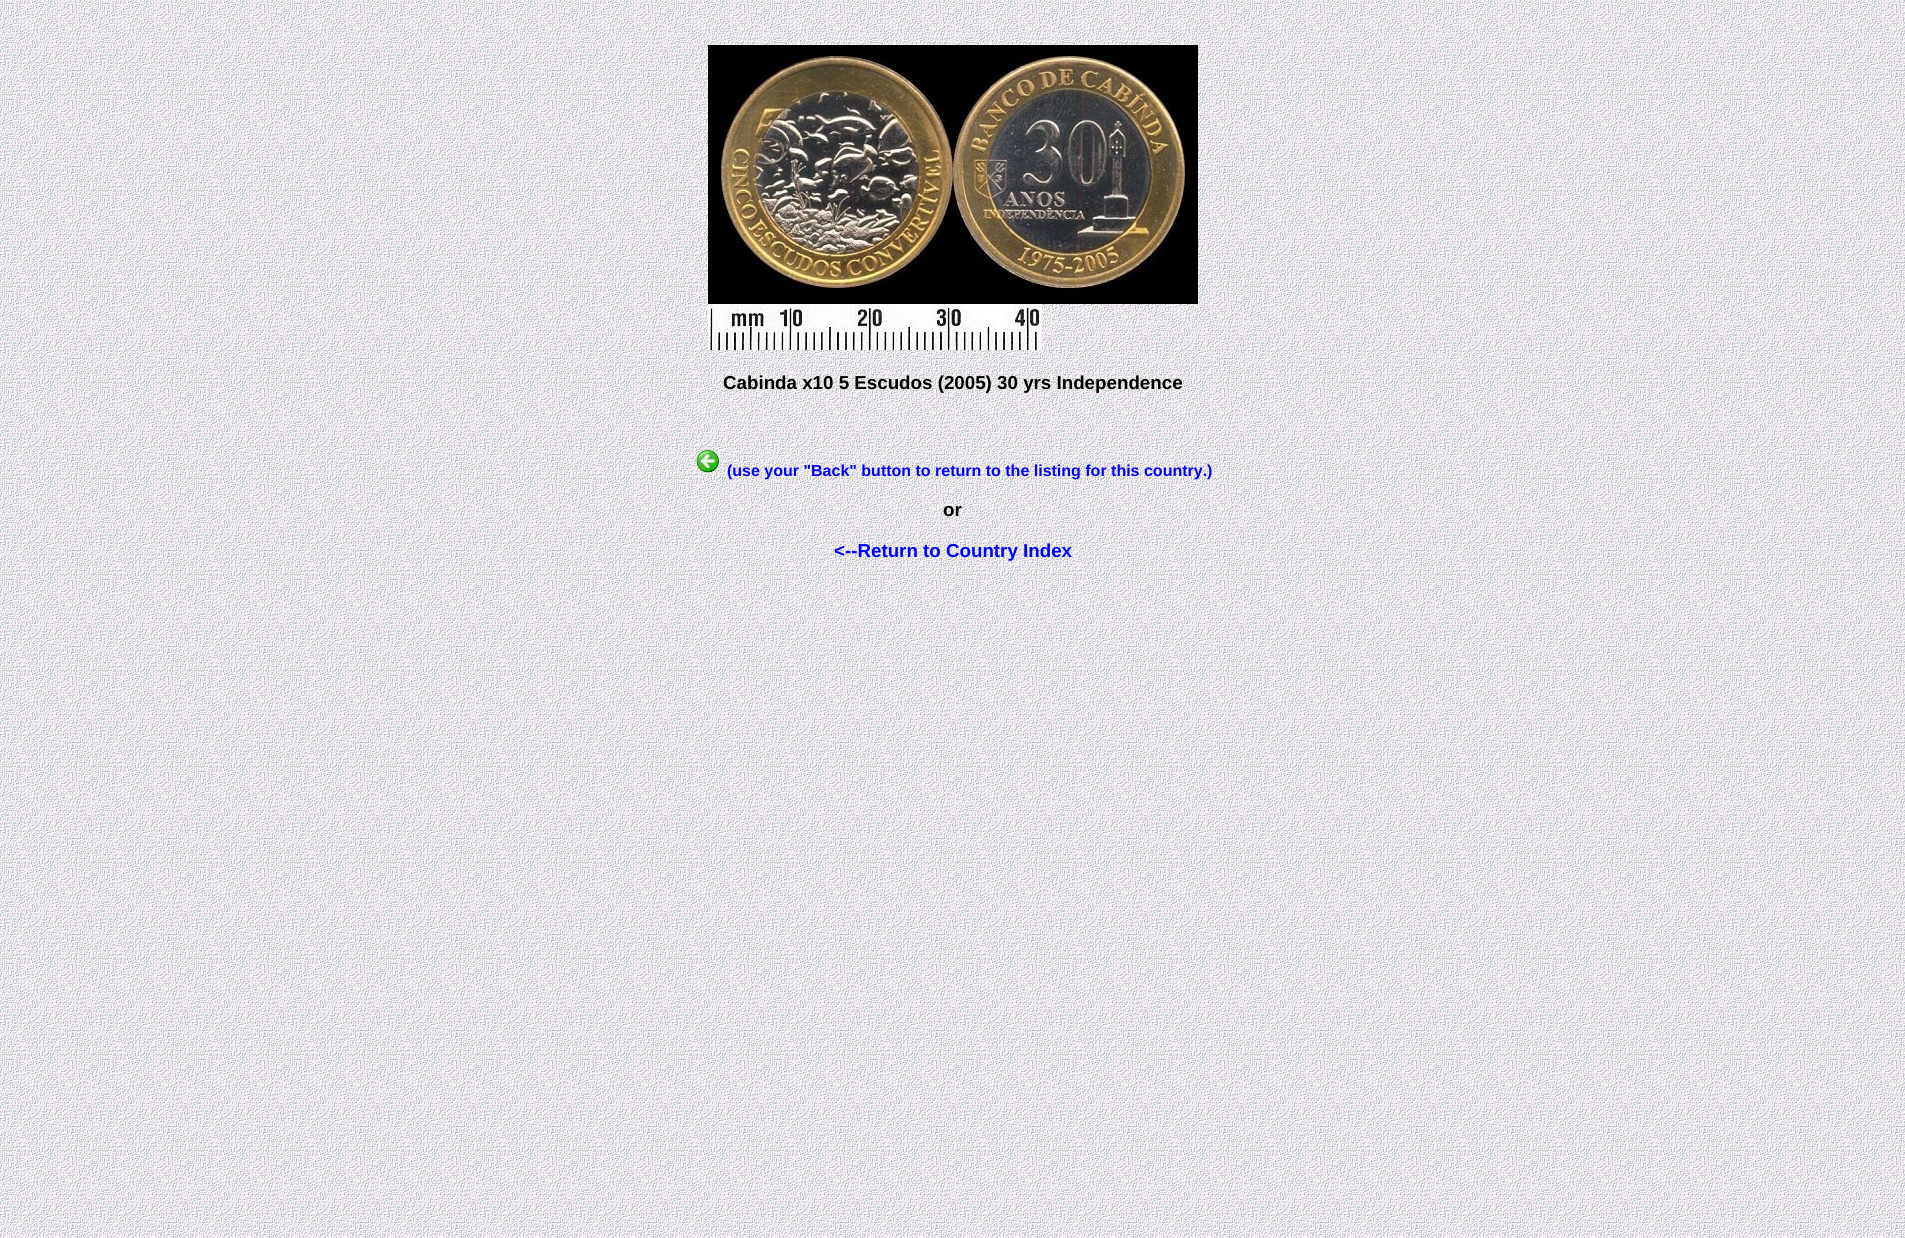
#include <cairo.h>
#include <math.h>
#include <stddef.h>

static cairo_t *c;
static void C(unsigned color){cairo_set_source_rgb(c, (color >> 16) / 255.0, (color >> 8 & 255) / 255.0, (color & 255) / 255.0);}
static void F(const char *family, double size, int italic, int bold){cairo_select_font_face(c, family, italic ? CAIRO_FONT_SLANT_ITALIC : CAIRO_FONT_SLANT_NORMAL,bold ? CAIRO_FONT_WEIGHT_BOLD : CAIRO_FONT_WEIGHT_NORMAL);cairo_set_font_size(c, size);}
static void T(double x, double y, const char *s){cairo_move_to(c, x, y);cairo_show_text(c, s);}
static void I(const char *path, double x, double y, double w, double h){cairo_surface_t *image = cairo_image_surface_create_from_png(path);cairo_save(c);cairo_set_source_surface(c, image, x, y);cairo_rectangle(c, x, y, w, h);cairo_fill(c);cairo_restore(c);cairo_surface_destroy(image);}
int main(void) {
cairo_surface_t *surface = cairo_image_surface_create(CAIRO_FORMAT_RGB24, 1905, 1238);
c = cairo_create(surface);
cairo_font_options_t *options = cairo_font_options_create();
cairo_font_options_set_hint_metrics(options, CAIRO_HINT_METRICS_OFF);
cairo_font_options_set_hint_style(options, CAIRO_HINT_STYLE_NONE);
cairo_set_font_options(c, options);
cairo_set_miter_limit(c, 4);
C(0xffffff);
cairo_paint(c);
I("1.png",0,0,1905,1238);
I("2.png",708,45,490,259);
I("3.png",708,304,334,46);
F("Liberation Sans",18.75,0,1);
C(0x000000);
T(723,389,"Cabinda x10 5 Escudos (2005) 30 yrs Independence");
I("4.png",696,450,23,23);
F("Liberation Sans",16,0,1);
C(0x0000ff);
T(727,476,"(use your \"Back\" button to return to the listing for this country.)");
F("Liberation Sans",18.75,0,1);
C(0x000000);
T(943,516,"or");
C(0x0000ff);
T(834,557,"<--Return to Country Index");
cairo_surface_write_to_png(surface, "o.png");
cairo_font_options_destroy(options);
cairo_destroy(c);
cairo_surface_destroy(surface);
return 0;
}
